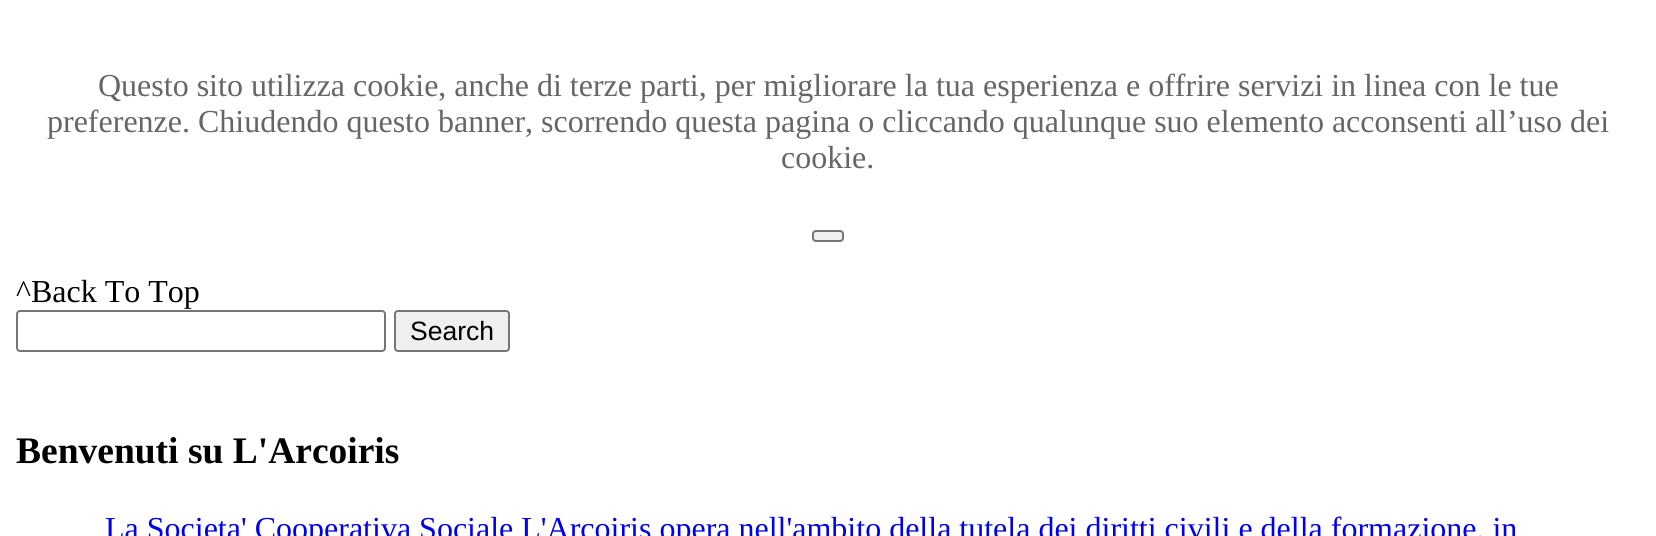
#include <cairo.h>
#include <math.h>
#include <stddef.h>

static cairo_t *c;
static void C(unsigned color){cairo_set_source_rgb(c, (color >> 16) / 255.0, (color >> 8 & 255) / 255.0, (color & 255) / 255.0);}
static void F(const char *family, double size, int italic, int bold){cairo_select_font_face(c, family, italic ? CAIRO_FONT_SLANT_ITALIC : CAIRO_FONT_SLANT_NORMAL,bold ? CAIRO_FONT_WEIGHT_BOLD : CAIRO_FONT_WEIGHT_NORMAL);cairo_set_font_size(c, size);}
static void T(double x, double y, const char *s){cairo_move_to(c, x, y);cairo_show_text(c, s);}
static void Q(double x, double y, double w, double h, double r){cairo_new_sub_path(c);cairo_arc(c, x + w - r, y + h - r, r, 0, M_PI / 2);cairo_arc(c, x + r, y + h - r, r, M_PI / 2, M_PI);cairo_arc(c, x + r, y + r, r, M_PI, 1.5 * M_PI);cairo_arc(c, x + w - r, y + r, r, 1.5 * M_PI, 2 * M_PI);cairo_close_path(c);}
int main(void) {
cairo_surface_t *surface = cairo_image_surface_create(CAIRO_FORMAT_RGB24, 1656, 536);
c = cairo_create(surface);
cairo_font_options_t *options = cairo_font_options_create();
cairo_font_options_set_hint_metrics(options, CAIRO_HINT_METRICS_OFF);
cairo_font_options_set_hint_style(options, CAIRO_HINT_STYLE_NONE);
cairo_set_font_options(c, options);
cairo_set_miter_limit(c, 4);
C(0xffffff);
cairo_paint(c);
F("Liberation Serif",32,0,0);
C(0x666666);
T(98,96,"Questo sito utilizza cookie, anche di terze parti, per migliorare la tua esperienza e offrire servizi in linea con le tue");
T(47,132,"preferenze. Chiudendo questo banner, scorrendo questa pagina o cliccando qualunque suo elemento acconsenti all’uso dei");
T(781,168,"cookie.");
C(0xefefef);
Q(813,231,30,10,3);
cairo_fill_preserve(c);
C(0x767676);
cairo_stroke(c);
C(0x000000);
T(16,302,"^Back To Top");
Q(17,311,368,40,3);
C(0x767676);
cairo_stroke(c);
C(0xefefef);
Q(395,311,114,40,3);
cairo_fill_preserve(c);
C(0x767676);
cairo_stroke(c);
F("Liberation Sans",26.5,0,0);
C(0x000000);
T(410,340,"Search");
F("Liberation Serif",37.5,0,1);
T(16,463,"Benvenuti su L'Arcoiris");
F("Liberation Serif",32,0,0);
C(0x0000ee);
T(105,539,"La Societa' Cooperativa Sociale L'Arcoiris opera nell'ambito della tutela dei diritti civili e della formazione, in");
cairo_surface_write_to_png(surface, "o.png");
cairo_font_options_destroy(options);
cairo_destroy(c);
cairo_surface_destroy(surface);
return 0;
}
